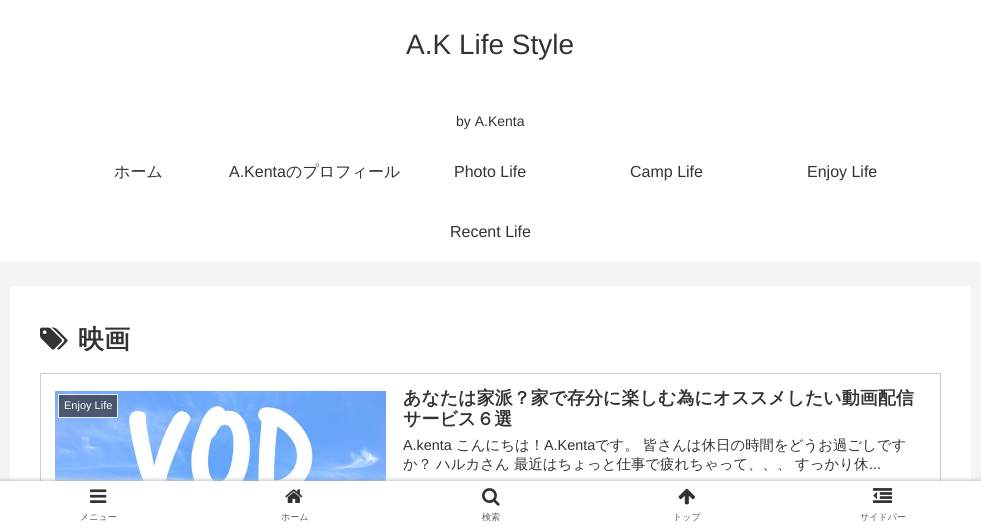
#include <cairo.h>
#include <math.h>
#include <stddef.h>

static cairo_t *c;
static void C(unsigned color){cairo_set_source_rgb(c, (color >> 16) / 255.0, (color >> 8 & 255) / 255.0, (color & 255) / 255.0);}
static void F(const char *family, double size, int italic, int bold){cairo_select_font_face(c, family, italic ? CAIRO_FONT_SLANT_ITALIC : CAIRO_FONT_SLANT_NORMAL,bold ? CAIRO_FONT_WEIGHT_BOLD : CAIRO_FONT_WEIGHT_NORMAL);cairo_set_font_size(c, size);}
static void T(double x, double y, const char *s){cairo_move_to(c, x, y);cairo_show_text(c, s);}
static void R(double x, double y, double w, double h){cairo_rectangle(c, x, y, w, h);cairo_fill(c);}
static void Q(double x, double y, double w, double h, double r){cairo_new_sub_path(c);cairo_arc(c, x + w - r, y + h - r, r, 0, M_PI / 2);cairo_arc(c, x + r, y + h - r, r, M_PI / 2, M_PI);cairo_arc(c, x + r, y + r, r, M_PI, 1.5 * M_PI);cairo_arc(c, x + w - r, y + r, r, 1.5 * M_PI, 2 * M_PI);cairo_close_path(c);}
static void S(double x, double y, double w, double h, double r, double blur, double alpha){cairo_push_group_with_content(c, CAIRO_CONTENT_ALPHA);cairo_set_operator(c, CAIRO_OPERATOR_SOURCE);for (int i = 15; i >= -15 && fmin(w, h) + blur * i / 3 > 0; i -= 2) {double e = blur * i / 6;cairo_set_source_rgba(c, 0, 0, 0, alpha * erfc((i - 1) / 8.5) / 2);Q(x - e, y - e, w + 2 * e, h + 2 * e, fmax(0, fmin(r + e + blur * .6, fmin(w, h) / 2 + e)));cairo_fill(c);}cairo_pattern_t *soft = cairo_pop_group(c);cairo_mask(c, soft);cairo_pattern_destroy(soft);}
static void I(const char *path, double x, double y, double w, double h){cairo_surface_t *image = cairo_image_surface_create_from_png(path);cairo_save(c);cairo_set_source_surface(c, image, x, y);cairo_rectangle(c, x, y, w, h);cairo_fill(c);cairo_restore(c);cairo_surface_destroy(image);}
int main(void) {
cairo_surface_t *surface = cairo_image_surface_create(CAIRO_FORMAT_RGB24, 981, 531);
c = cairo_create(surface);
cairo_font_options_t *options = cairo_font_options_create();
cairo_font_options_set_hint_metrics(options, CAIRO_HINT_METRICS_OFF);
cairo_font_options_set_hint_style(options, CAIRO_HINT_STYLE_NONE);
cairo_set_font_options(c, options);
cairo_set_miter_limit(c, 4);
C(0xf4f5f7);
cairo_paint(c);
C(0xffffff);
R(0,0,981,262);
F("Liberation Sans",28,0,0);
C(0x333333);
T(406,54,"A.K Life Style");
F("Liberation Sans",14,0,0);
T(456,126,"by A.Kenta");
F("WenQuanYi Zen Hei Medium",16,0,0);
T(114,177,"ホーム");
F("Liberation Sans",16,0,0);
T(229,177,"A.Kenta");
F("WenQuanYi Zen Hei Medium",16,0,0);
T(286,177,"のプロフィール");
F("Liberation Sans",16,0,0);
T(454,177,"Photo Life");
T(630,177,"Camp Life");
T(807,177,"Enjoy Life");
T(450,237,"Recent Life");
C(0xffffff);
Q(10,286,961,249,4);
cairo_fill(c);
I("1.png",40,327,28,23);
F("WenQuanYi Zen Hei",26,0,1);
C(0x333333);
T(78,348,"映画");
cairo_rectangle(c,40.5,373.5,900,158);
C(0xcccccc);
cairo_set_line_width(c,1);
cairo_stroke(c);
I("2.png",55,391,331,90);
cairo_set_source_rgba(c,0.2,0.2,0.2,0.7);
cairo_rectangle(c,58.5,394.5,59,23);
cairo_fill_preserve(c);
C(0xeeeeee);
cairo_stroke(c);
F("Liberation Sans",11,0,0);
C(0xffffff);
T(64,409,"Enjoy Life");
F("WenQuanYi Zen Hei",18,0,1);
C(0x333333);
T(403,404,"あなたは家派？家で存分に楽しむ為にオススメしたい動画配信");
T(403,425,"サービス６選");
F("Liberation Sans",14.4,0,0);
T(403,450,"A.kenta");
F("WenQuanYi Zen Hei Medium",14.4,0,0);
T(456,450,"こんにちは！");
F("Liberation Sans",14.4,0,0);
T(544,450,"A.Kenta");
F("WenQuanYi Zen Hei Medium",14.4,0,0);
T(595,450,"です。");
T(643,450,"皆さんは休日の時間をどうお過ごしです");
T(403,469,"か？");
T(436,469,"ハルカさん");
T(514,469,"最近はちょっと仕事で疲れちゃって、、、");
T(795,469,"すっかり休");
F("Liberation Sans",14.4,0,0);
T(869,469,"...");
C(0xa9a9a9);
S(0,481,981,50,0,2.5,1);
C(0xffffff);
R(0,481,981,50);
I("3.png",90,489,17,14);
F("WenQuanYi Zen Hei Medium",9,0,0);
C(0x5c5c5c);
T(80,520,"メニュー");
I("4.png",285,489,18,14);
T(281,520,"ホーム");
I("5.png",482,488,18,18);
T(482,520,"検索");
I("6.png",678,488,17,17);
T(673,520,"トップ");
I("7.png",873,488,19,15);
T(860,520,"サイドバー");
cairo_surface_write_to_png(surface, "o.png");
cairo_font_options_destroy(options);
cairo_destroy(c);
cairo_surface_destroy(surface);
return 0;
}
